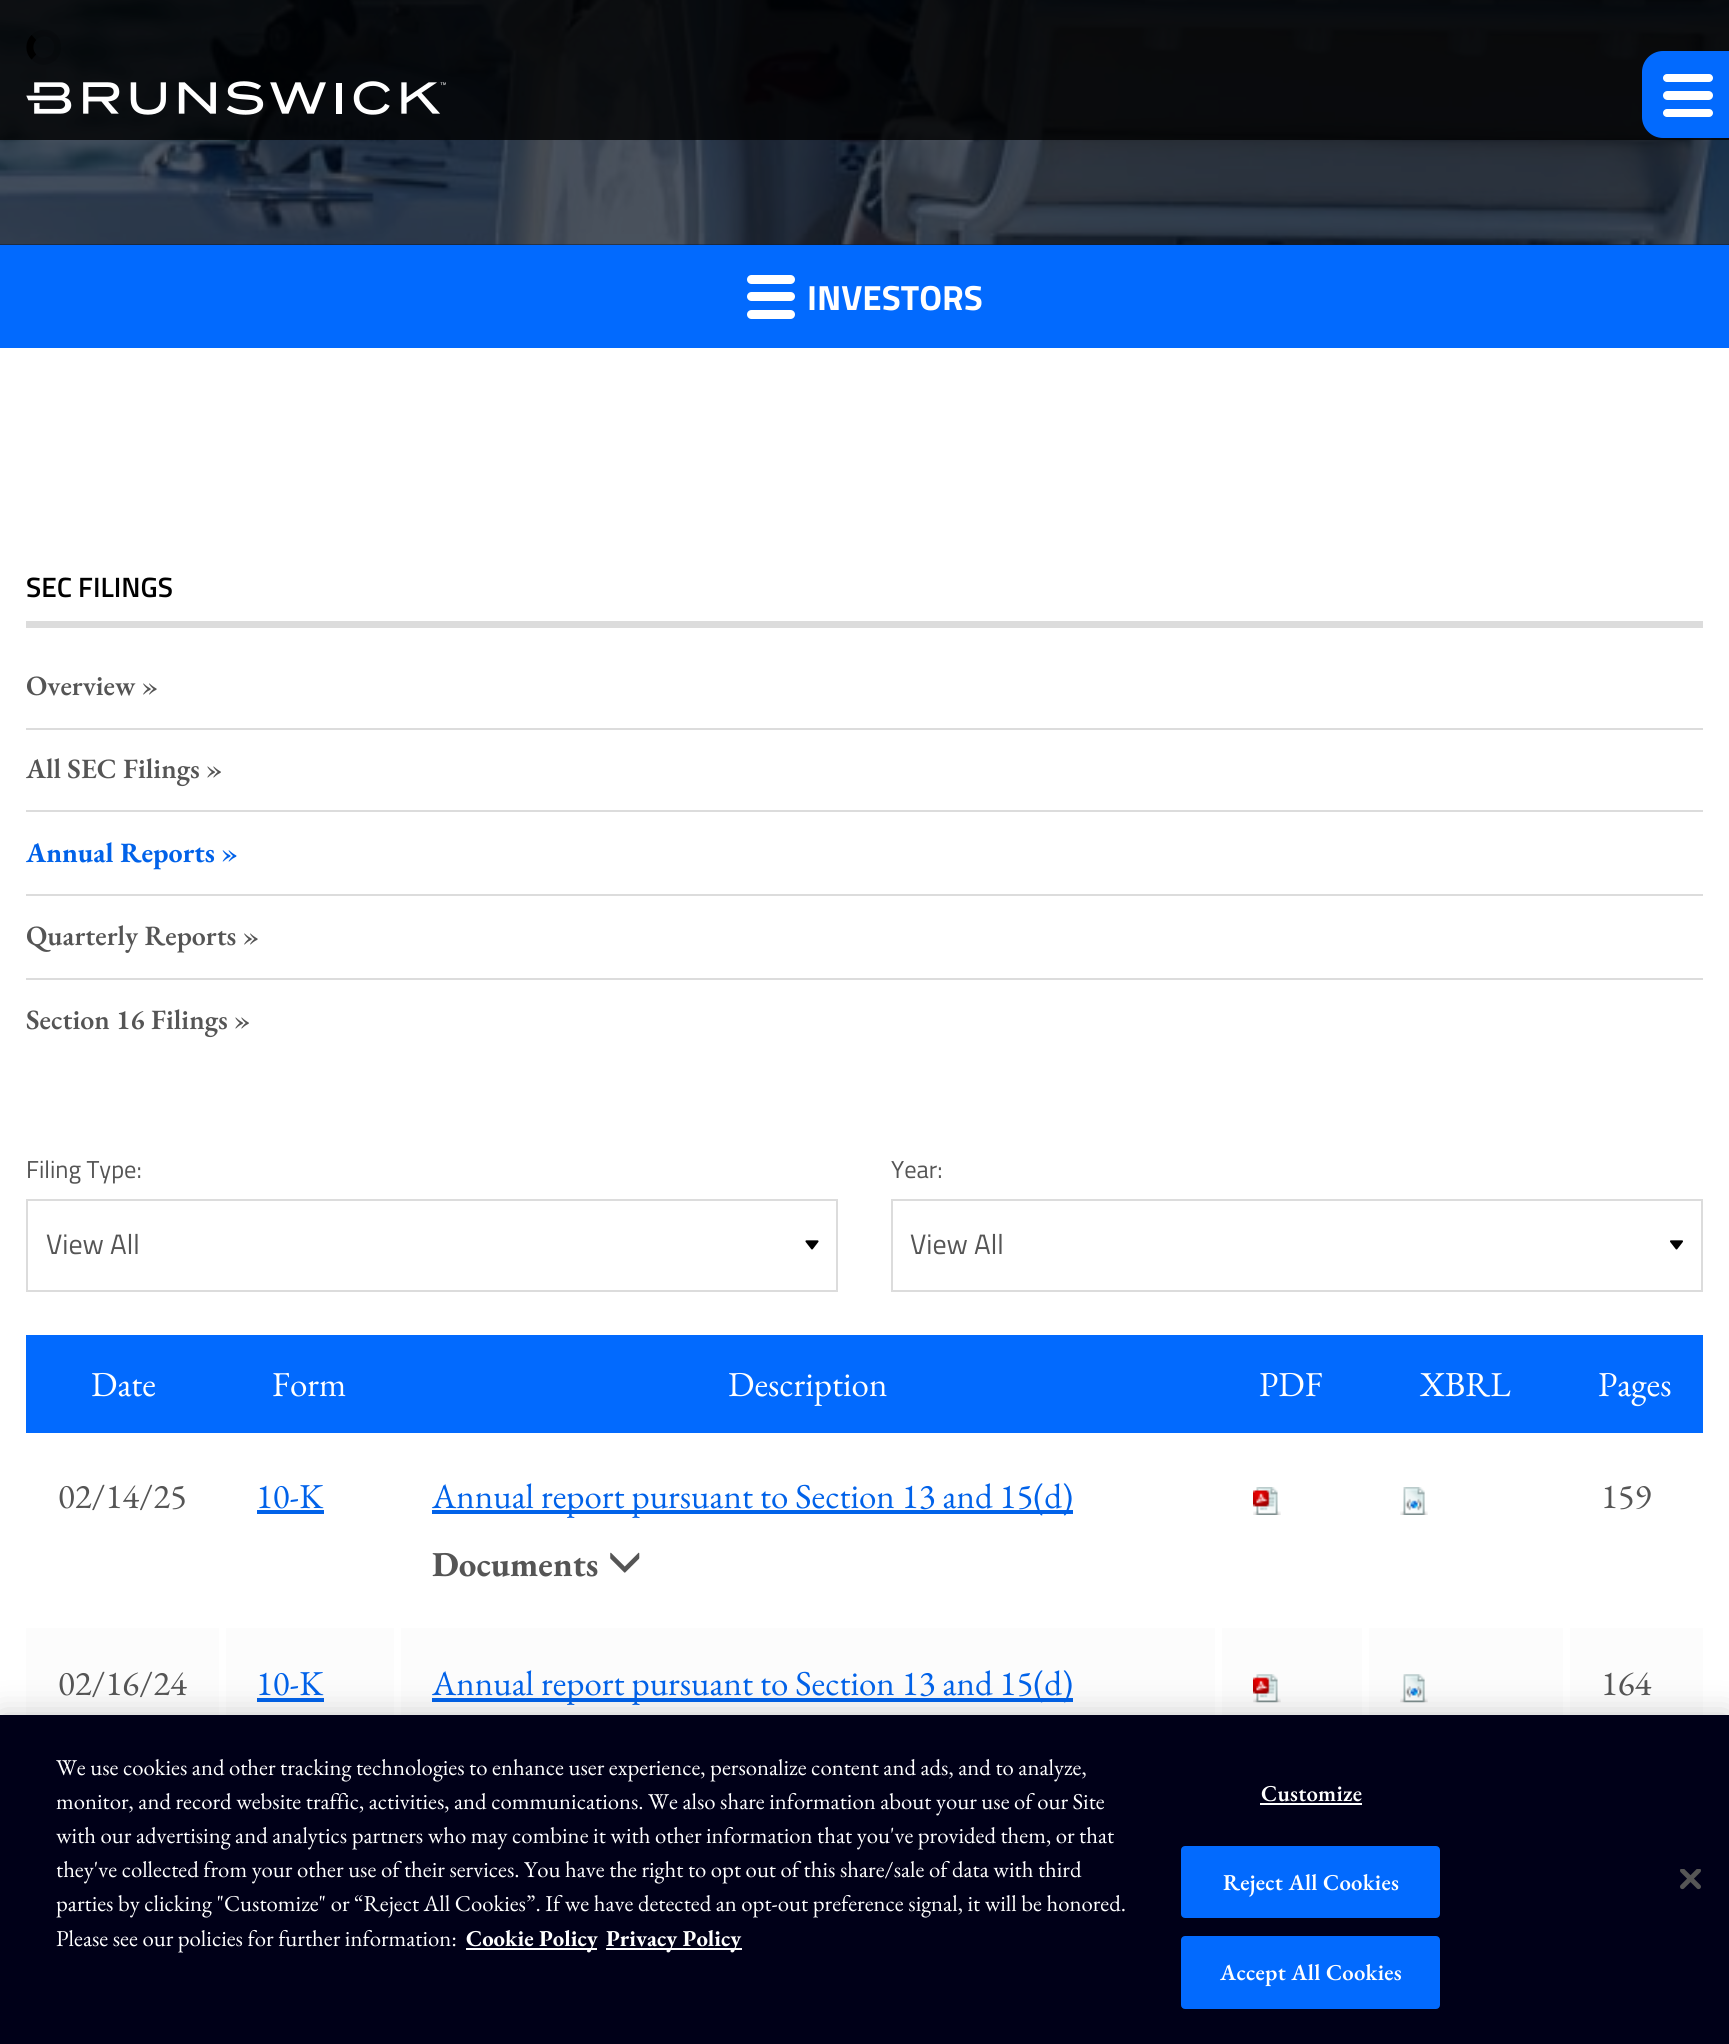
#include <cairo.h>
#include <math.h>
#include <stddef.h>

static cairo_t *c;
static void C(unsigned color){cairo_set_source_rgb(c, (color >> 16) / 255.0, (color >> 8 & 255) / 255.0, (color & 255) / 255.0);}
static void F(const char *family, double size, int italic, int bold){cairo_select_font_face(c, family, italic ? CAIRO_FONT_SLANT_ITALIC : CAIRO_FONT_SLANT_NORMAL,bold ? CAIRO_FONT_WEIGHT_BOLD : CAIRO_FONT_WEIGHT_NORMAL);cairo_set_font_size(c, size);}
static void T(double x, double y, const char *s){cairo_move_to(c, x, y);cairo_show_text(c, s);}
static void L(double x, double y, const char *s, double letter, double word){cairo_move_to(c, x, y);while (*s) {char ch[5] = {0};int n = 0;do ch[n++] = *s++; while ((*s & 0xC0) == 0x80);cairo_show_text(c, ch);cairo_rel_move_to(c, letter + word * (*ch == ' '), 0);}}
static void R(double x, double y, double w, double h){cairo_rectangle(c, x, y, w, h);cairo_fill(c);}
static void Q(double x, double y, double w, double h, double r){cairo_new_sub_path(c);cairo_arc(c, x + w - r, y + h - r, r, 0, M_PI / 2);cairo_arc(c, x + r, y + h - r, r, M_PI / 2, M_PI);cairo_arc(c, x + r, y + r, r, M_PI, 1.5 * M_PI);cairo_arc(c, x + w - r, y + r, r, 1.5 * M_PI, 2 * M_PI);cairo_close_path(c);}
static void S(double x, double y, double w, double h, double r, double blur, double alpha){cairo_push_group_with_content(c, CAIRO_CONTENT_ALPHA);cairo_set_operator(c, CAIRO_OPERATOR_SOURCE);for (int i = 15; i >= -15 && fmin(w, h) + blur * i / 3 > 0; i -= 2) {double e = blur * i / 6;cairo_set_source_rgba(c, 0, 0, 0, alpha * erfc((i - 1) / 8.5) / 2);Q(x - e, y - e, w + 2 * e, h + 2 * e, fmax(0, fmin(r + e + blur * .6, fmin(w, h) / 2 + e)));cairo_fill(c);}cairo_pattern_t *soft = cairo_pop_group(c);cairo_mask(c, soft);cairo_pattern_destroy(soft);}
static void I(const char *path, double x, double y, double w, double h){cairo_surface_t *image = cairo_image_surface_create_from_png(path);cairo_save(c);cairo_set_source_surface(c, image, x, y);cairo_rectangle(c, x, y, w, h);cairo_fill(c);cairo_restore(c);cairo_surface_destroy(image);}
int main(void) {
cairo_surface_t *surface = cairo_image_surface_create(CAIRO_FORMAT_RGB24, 1729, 2044);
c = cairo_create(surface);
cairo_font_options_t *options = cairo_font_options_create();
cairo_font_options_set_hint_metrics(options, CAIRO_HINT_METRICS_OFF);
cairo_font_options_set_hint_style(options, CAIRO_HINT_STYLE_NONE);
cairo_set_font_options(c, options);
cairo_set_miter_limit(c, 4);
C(0xffffff);
cairo_paint(c);
C(0x091834);
R(0,244,1729,1);
I("2.png",0,0,1729,245);
cairo_set_source_rgba(c,0,0,0,0.8);
R(0,0,1729,140);
cairo_new_path(c);
cairo_move_to(c,34,37.5);
cairo_curve_to(c,36.5,34.5,40,33.5,44,33);
cairo_curve_to(c,60.5,33,63,57.5,46.5,61);
cairo_curve_to(c,42,62,37,60.5,34,57);
cairo_set_source_rgba(c,0,0,0,0.2);
cairo_set_line_width(c,7);
cairo_stroke(c);
cairo_new_path(c);
cairo_move_to(c,34,57);
cairo_curve_to(c,28.5,52,28.5,42.5,34,37.5);
C(0x000000);
cairo_stroke(c);
I("1.png",26,81,420,34);
C(0x026afe);
cairo_new_path(c);
cairo_move_to(c,1663,51);
cairo_line_to(c,1729,51);
cairo_line_to(c,1729,138);
cairo_line_to(c,1663,138);
cairo_curve_to(c,1651.5,138,1642,128.5,1642,117);
cairo_line_to(c,1642,72);
cairo_curve_to(c,1642,60.5,1651.5,51,1663,51);
cairo_close_path(c);
cairo_fill(c);
C(0xffffff);
Q(1663,74,50,8,4);
cairo_fill(c);
Q(1663,91,50,9,4.5);
cairo_fill(c);
Q(1663,109,50,8,4);
cairo_fill(c);
C(0x026afe);
R(0,245,1729,103);
C(0xffffff);
Q(747,275,48,9,4.5);
cairo_fill(c);
Q(747,292,48,9,4.5);
cairo_fill(c);
Q(747,310,48,9,4.5);
cairo_fill(c);
F("Titillium Web",35,0,1);
T(807,310,"INVESTORS");
C(0xdcdcdc);
R(26,621,1677,7);
F("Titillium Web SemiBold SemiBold",28,0,0);
C(0x000000);
T(26,597,"SEC FILINGS");
C(0xdcdcdc);
R(26,728,1677,2);
F("EB Garamond SemiBold",28,0,0);
C(0x555555);
T(26,695,"Overview »");
C(0xdcdcdc);
R(26,810,1677,2);
C(0x555555);
T(26,778,"All SEC Filings »");
C(0xdcdcdc);
R(26,894,1677,2);
F("EB Garamond",28,0,1);
C(0x0162e9);
T(26,862,"Annual Reports »");
C(0xdcdcdc);
R(26,978,1677,2);
F("EB Garamond SemiBold",28,0,0);
C(0x555555);
T(26,945,"Quarterly Reports »");
T(26,1029,"Section 16 Filings »");
F("Titillium Web",24.5,0,0);
T(26,1178,"Filing Type:");
I("3.png",805,1240,14,10);
cairo_rectangle(c,27,1200,810,91);
C(0xdcdcdc);
cairo_set_line_width(c,2);
cairo_stroke(c);
F("Titillium Web",28,0,0);
C(0x555555);
T(46,1254,"View All");
F("Titillium Web",24.5,0,0);
T(891,1178,"Year:");
I("4.png",1670,1240,13,10);
cairo_rectangle(c,892,1200,810,91);
C(0xdcdcdc);
cairo_stroke(c);
F("Titillium Web",28,0,0);
C(0x555555);
T(910,1254,"View All");
C(0x026afe);
R(26,1335,1677,98);
F("EB Garamond",35,0,0);
C(0xffffff);
T(91,1396,"Date");
T(272,1396,"Form");
T(728,1396,"Description");
T(1259,1396,"PDF");
T(1420,1396,"XBRL");
T(1598,1396,"Pages");
C(0x555555);
T(58,1508,"02/14/25");
C(0x0162e9);
T(256,1508,"10-K");
R(257,1510,67,4);
R(432,1510,641,4);
T(432,1508,"Annual report pursuant to Section 13 and 15(d)");
F("EB Garamond",35,0,1);
C(0x555555);
T(432,1576,"Documents");
I("5.png",610,1552,30,21);
I("6.png",1253,1487,28,28);
I("7.png",1400,1487,28,28);
F("EB Garamond",35,0,0);
T(1601,1508,"159");
C(0xfcfcfc);
R(26,1628,193,87);
C(0x555555);
T(58,1695,"02/16/24");
C(0xfcfcfc);
R(226,1628,168,87);
C(0x0162e9);
T(256,1695,"10-K");
R(257,1698,67,4);
C(0xfcfcfc);
R(401,1628,814,87);
C(0x0162e9);
R(432,1698,641,4);
T(432,1695,"Annual report pursuant to Section 13 and 15(d)");
C(0xfcfcfc);
R(1222,1628,140,87);
I("8.png",1253,1674,28,29);
R(1369,1628,194,87);
I("9.png",1400,1674,28,29);
R(1570,1628,133,87);
C(0x555555);
T(1601,1695,"164");
C(0x000000);
S(0,1715,1729,329,0,16,.2);
C(0x000018);
R(0,1715,1729,329);
F("EB Garamond",22.75,0,0);
C(0xffffff);
T(56,1775,"We use cookies and other tracking technologies to enhance user experience, personalize content and ads, and to analyze,");
T(56,1809,"monitor, and record website traffic, activities, and communications. We also share information about your use of our Site");
T(56,1843,"with our advertising and analytics partners who may combine it with other information that you've provided them, or that");
T(56,1877,"they've collected from your other use of their services. You have the right to opt out of this share/sale of data with third");
T(56,1911,"parties by clicking \"Customize\" or “Reject All Cookies”. If we have detected an opt-out preference signal, it will be honored.");
T(56,1946,"Please see our policies for further information:");
R(466,1948,131,2);
F("EB Garamond",22.75,0,1);
T(466,1946,"Cookie Policy");
R(606,1948,136,2);
T(606,1946,"Privacy Policy");
F("EB Garamond SemiBold",22.75,0,0);
L(1261,1801,"Customize",.25,0);
R(1260,1803,102,2);
C(0x026afe);
Q(1182,1847,257,70,3);
cairo_fill_preserve(c);
cairo_stroke(c);
C(0xffffff);
L(1223,1890,"Reject All Cookies",.25,0);
C(0x026afe);
Q(1182,1937,257,71,3);
cairo_fill_preserve(c);
cairo_stroke(c);
C(0xffffff);
L(1220,1980,"Accept All Cookies",.25,0);
I("10.png",1680,1869,21,21);
cairo_surface_write_to_png(surface, "o.png");
cairo_font_options_destroy(options);
cairo_destroy(c);
cairo_surface_destroy(surface);
return 0;
}
